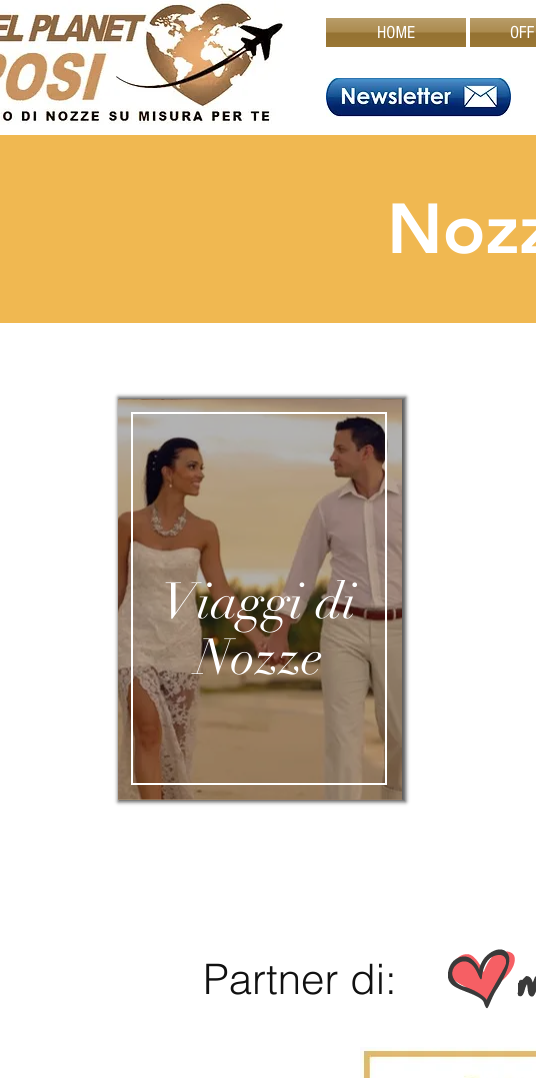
#include <cairo.h>
#include <math.h>
#include <stddef.h>

static cairo_t *c;
static void C(unsigned color){cairo_set_source_rgb(c, (color >> 16) / 255.0, (color >> 8 & 255) / 255.0, (color & 255) / 255.0);}
static void F(const char *family, double size, int italic, int bold){cairo_select_font_face(c, family, italic ? CAIRO_FONT_SLANT_ITALIC : CAIRO_FONT_SLANT_NORMAL,bold ? CAIRO_FONT_WEIGHT_BOLD : CAIRO_FONT_WEIGHT_NORMAL);cairo_set_font_size(c, size);}
static void T(double x, double y, const char *s){cairo_move_to(c, x, y);cairo_show_text(c, s);}
static void R(double x, double y, double w, double h){cairo_rectangle(c, x, y, w, h);cairo_fill(c);}
static void Q(double x, double y, double w, double h, double r){cairo_new_sub_path(c);cairo_arc(c, x + w - r, y + h - r, r, 0, M_PI / 2);cairo_arc(c, x + r, y + h - r, r, M_PI / 2, M_PI);cairo_arc(c, x + r, y + r, r, M_PI, 1.5 * M_PI);cairo_arc(c, x + w - r, y + r, r, 1.5 * M_PI, 2 * M_PI);cairo_close_path(c);}
static void S(double x, double y, double w, double h, double r, double blur, double alpha){cairo_push_group_with_content(c, CAIRO_CONTENT_ALPHA);cairo_set_operator(c, CAIRO_OPERATOR_SOURCE);for (int i = 15; i >= -15 && fmin(w, h) + blur * i / 3 > 0; i -= 2) {double e = blur * i / 6;cairo_set_source_rgba(c, 0, 0, 0, alpha * erfc((i - 1) / 8.5) / 2);Q(x - e, y - e, w + 2 * e, h + 2 * e, fmax(0, fmin(r + e + blur * .6, fmin(w, h) / 2 + e)));cairo_fill(c);}cairo_pattern_t *soft = cairo_pop_group(c);cairo_mask(c, soft);cairo_pattern_destroy(soft);}
static void I(const char *path, double x, double y, double w, double h){cairo_surface_t *image = cairo_image_surface_create_from_png(path);cairo_save(c);cairo_set_source_surface(c, image, x, y);cairo_rectangle(c, x, y, w, h);cairo_fill(c);cairo_restore(c);cairo_surface_destroy(image);}
int main(void) {
cairo_surface_t *surface = cairo_image_surface_create(CAIRO_FORMAT_RGB24, 536, 1078);
c = cairo_create(surface);
cairo_font_options_t *options = cairo_font_options_create();
cairo_font_options_set_hint_metrics(options, CAIRO_HINT_METRICS_OFF);
cairo_font_options_set_hint_style(options, CAIRO_HINT_STYLE_NONE);
cairo_set_font_options(c, options);
cairo_set_miter_limit(c, 4);
C(0xffffff);
cairo_paint(c);
I("1.png",0,0,285,125);
C(0xa07b36);
R(326,18,140,29);
I("2.png",326,18,140,29);
F("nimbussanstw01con",18,0,0);
C(0xffffff);
T(377,38,"HOME");
C(0xa07b36);
R(470,18,66,29);
I("3.png",470,18,66,29);
C(0xffffff);
T(510,38,"OFF");
I("4.png",326,78,185,39);
C(0xf0b851);
R(0,135,536,188);
F("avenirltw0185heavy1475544 Black",70,0,0);
C(0xffffff);
T(387,253,"Nozz");
C(0x000000);
S(118,397,288,405,0,2,.65);
C(0x000000);
R(118,399,284,401);
I("5.png",118,399,284,401);
cairo_new_path(c);
cairo_move_to(c,386,413);
cairo_line_to(c,386,784);
cairo_line_to(c,132,784);
cairo_line_to(c,132,413);
cairo_close_path(c);
C(0xffffff);
cairo_stroke(c);
F("didot",50,0,0);
T(162,618,"Viaggi di");
T(196,674,"Nozze");
F("helvetica Light",42,0,0);
C(0x111111);
T(203,994,"Partner di:");
I("6.png",448,949,88,60);
I("7.png",360,1047,176,31);
cairo_surface_write_to_png(surface, "o.png");
cairo_font_options_destroy(options);
cairo_destroy(c);
cairo_surface_destroy(surface);
return 0;
}
